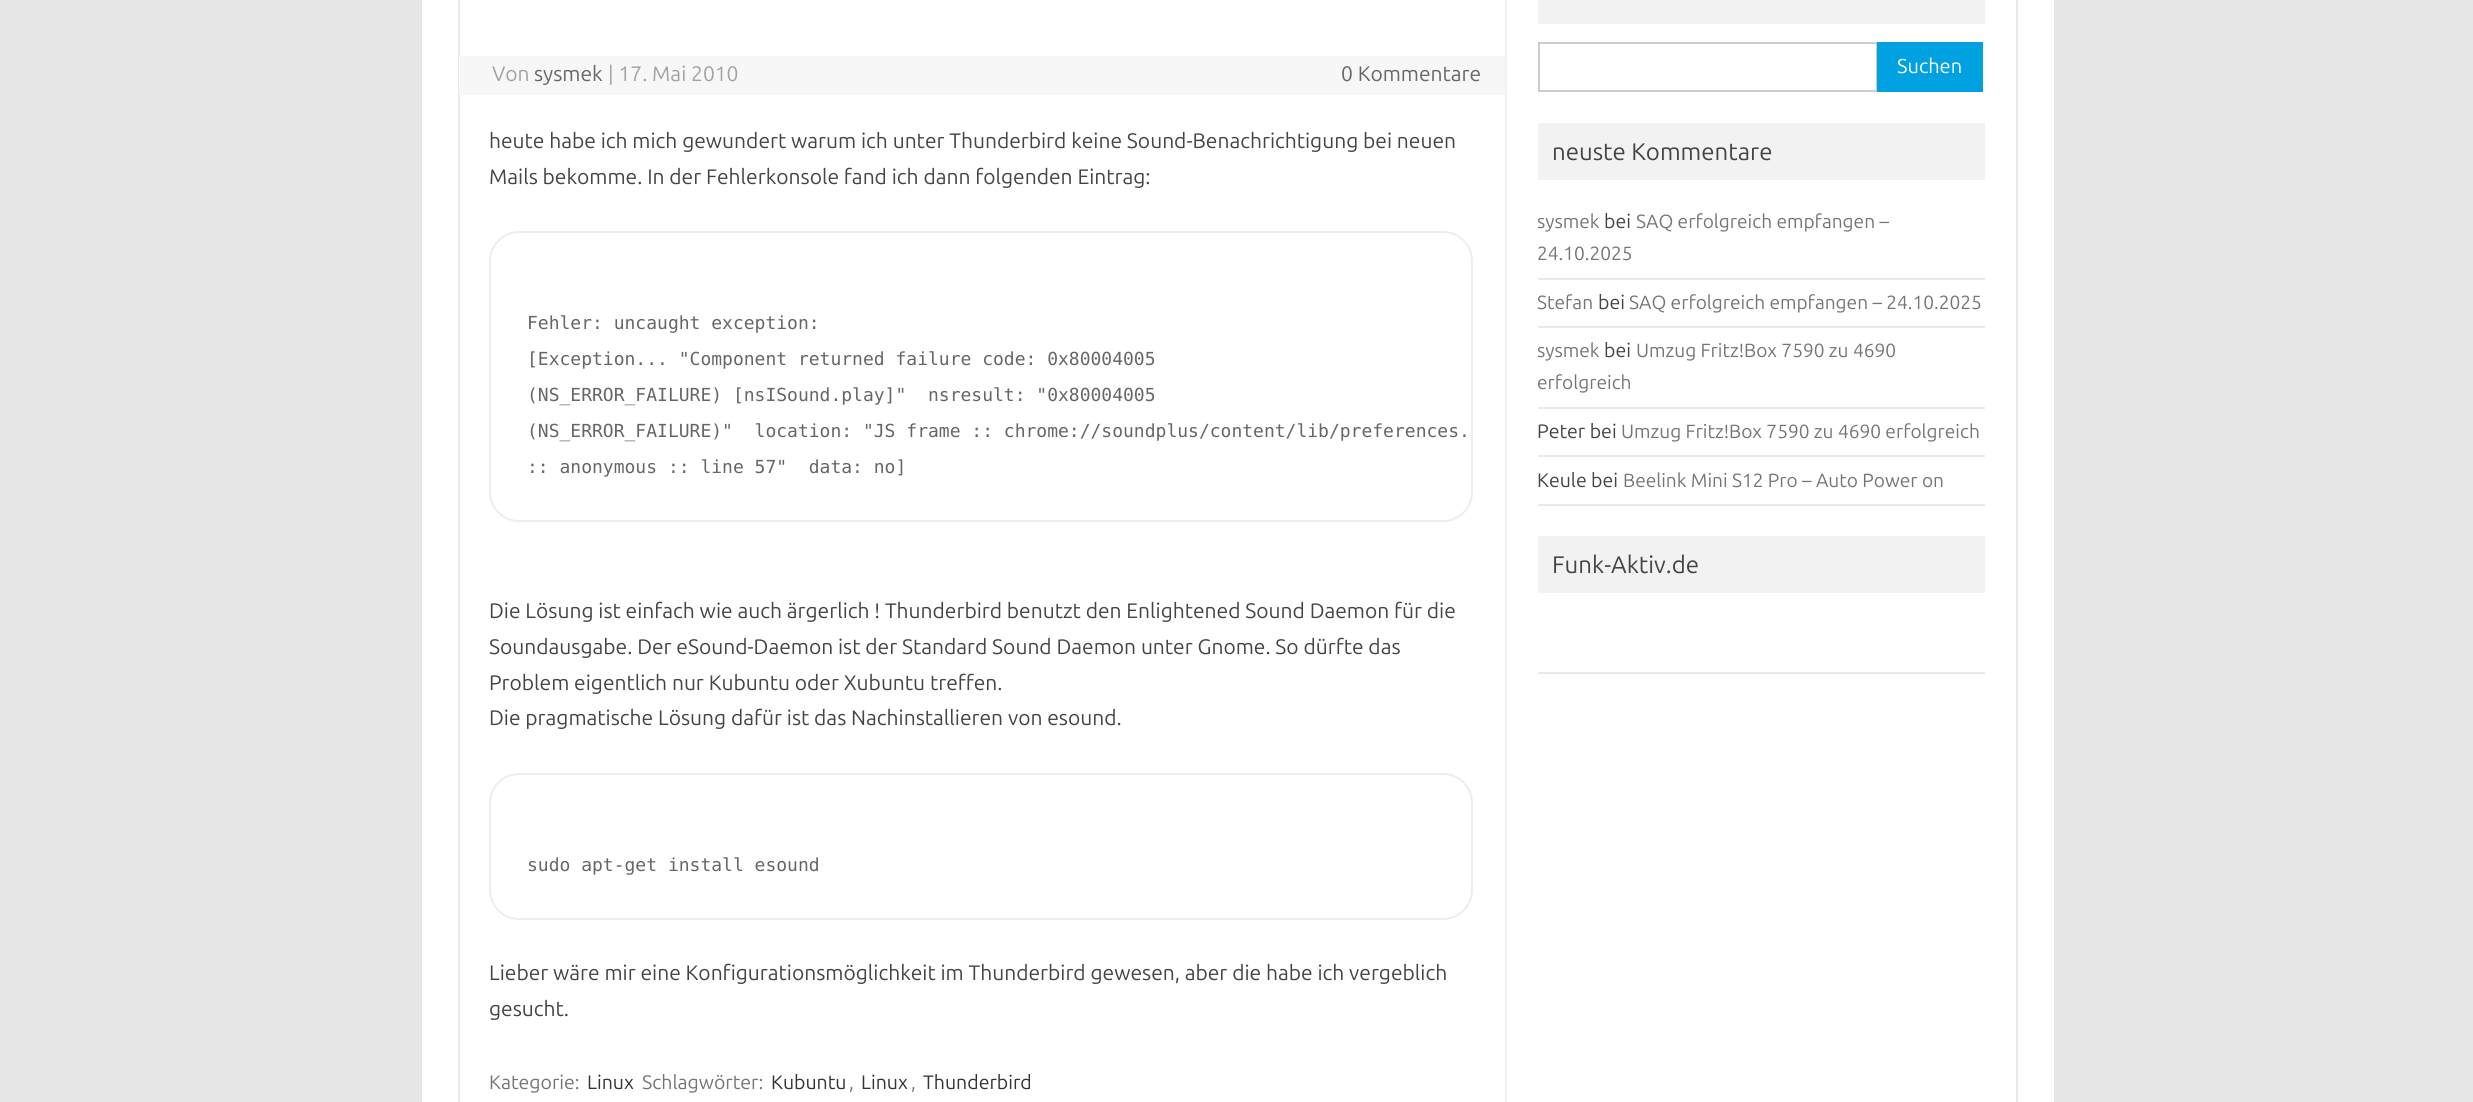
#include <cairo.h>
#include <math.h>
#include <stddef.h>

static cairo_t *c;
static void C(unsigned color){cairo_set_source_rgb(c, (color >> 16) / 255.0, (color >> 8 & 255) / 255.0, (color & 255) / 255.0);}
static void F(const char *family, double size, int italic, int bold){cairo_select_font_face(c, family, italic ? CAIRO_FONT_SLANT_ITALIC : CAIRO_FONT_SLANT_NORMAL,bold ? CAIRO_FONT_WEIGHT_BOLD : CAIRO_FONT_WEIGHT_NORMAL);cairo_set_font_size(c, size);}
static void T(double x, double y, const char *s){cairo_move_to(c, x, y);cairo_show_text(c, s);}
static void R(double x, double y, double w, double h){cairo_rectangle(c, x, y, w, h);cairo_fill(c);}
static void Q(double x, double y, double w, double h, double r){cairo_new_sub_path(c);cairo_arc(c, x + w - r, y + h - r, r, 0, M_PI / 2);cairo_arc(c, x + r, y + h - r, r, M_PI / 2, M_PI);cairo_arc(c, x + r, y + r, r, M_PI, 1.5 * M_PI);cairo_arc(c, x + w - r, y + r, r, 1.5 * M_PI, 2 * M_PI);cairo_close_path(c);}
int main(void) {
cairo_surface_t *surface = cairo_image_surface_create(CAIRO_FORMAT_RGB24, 2473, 1102);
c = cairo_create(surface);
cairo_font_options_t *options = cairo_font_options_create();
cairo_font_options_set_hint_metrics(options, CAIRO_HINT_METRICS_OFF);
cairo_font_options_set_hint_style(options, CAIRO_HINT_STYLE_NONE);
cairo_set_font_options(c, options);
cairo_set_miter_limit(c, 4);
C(0xe6e6e6);
cairo_paint(c);
C(0xffffff);
R(422,0,1632,1102);
cairo_rectangle(c,459,-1,1558,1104);
C(0xe9e9e9);
cairo_stroke(c);
C(0xf1f1f1);
R(1505,0,2,1102);
C(0xf7f7f7);
R(459,56,1046,39);
F("Ubuntu",21,0,0);
C(0xa2a2a2);
T(492,81,"Von");
C(0x666666);
T(534,81,"sysmek");
C(0xa2a2a2);
T(608,81,"| 17. Mai 2010");
C(0x666666);
T(1341,81,"0 Kommentare");
C(0x444444);
T(489,148,"heute habe ich mich gewundert warum ich unter Thunderbird keine Sound-Benachrichtigung bei neuen");
T(489,184,"Mails bekomme. In der Fehlerkonsole fand ich dann folgenden Eintrag:");
Q(490,232,982,289,29);
C(0xededed);
cairo_stroke(c);
F("DejaVu Sans Mono",18,0,0);
C(0x666666);
T(527,329,"Fehler: uncaught exception:");
T(527,365,"[Exception... \"Component returned failure code: 0x80004005");
T(527,401,"(NS_ERROR_FAILURE) [nsISound.play]\"  nsresult: \"0x80004005");
T(527,437,"(NS_ERROR_FAILURE)\"  location: \"JS frame :: chrome://soundplus/content/lib/preferences.");
T(527,473,":: anonymous :: line 57\"  data: no]");
F("Ubuntu",21,0,0);
C(0x444444);
T(489,618,"Die Lösung ist einfach wie auch ärgerlich ! Thunderbird benutzt den Enlightened Sound Daemon für die");
T(489,654,"Soundausgabe. Der eSound-Daemon ist der Standard Sound Daemon unter Gnome. So dürfte das");
T(489,690,"Problem eigentlich nur Kubuntu oder Xubuntu treffen.");
T(489,725,"Die pragmatische Lösung dafür ist das Nachinstallieren von esound.");
Q(490,774,982,145,29);
C(0xededed);
cairo_stroke(c);
F("DejaVu Sans Mono",18,0,0);
C(0x666666);
T(527,871,"sudo apt-get install esound");
F("Ubuntu",21,0,0);
C(0x444444);
T(489,980,"Lieber wäre mir eine Konfigurationsmöglichkeit im Thunderbird gewesen, aber die habe ich vergeblich");
T(489,1016,"gesucht.");
F("Ubuntu",19.5,0,0);
C(0x757575);
T(489,1089,"Kategorie:");
C(0x333333);
T(587,1089,"Linux");
C(0x757575);
T(642,1089,"Schlagwörter:");
C(0x333333);
T(771,1089,"Kubuntu");
C(0x757575);
T(849,1089,",");
C(0x333333);
T(861,1089,"Linux");
C(0x757575);
T(911,1089,",");
C(0x333333);
T(923,1089,"Thunderbird");
C(0xf2f2f2);
R(1538,0,447,24);
cairo_rectangle(c,1539,43,338,48);
C(0xcccccc);
cairo_stroke(c);
C(0x00a1e0);
R(1877,42,106,50);
F("Ubuntu",20,0,0);
C(0xffffff);
T(1897,73,"Suchen");
C(0xf2f2f2);
R(1538,123,447,57);
F("Ubuntu",24,0,0);
C(0x444444);
T(1552,160,"neuste Kommentare");
C(0xe9e9e9);
R(1538,278,447,2);
F("Ubuntu",19.1,0,0);
C(0x757575);
T(1537,228,"sysmek");
F("Ubuntu",19.5,0,0);
C(0x444444);
T(1604,228,"bei");
F("Ubuntu",19.1,0,0);
C(0x757575);
T(1636,228,"SAQ erfolgreich empfangen –");
T(1537,260,"24.10.2025");
C(0xe9e9e9);
R(1538,326,447,2);
C(0x757575);
T(1537,309,"Stefan");
F("Ubuntu",19.5,0,0);
C(0x444444);
T(1598,309,"bei");
F("Ubuntu",19.1,0,0);
C(0x757575);
T(1629,309,"SAQ erfolgreich empfangen – 24.10.2025");
C(0xe9e9e9);
R(1538,407,447,2);
C(0x757575);
T(1537,357,"sysmek");
F("Ubuntu",19.5,0,0);
C(0x444444);
T(1604,357,"bei");
F("Ubuntu",19.1,0,0);
C(0x757575);
T(1636,357,"Umzug Fritz!Box 7590 zu 4690");
T(1537,389,"erfolgreich");
C(0xe9e9e9);
R(1538,455,447,2);
F("Ubuntu",19.5,0,0);
C(0x444444);
T(1537,438,"Peter bei");
F("Ubuntu",19.1,0,0);
C(0x757575);
T(1621,438,"Umzug Fritz!Box 7590 zu 4690 erfolgreich");
C(0xe9e9e9);
R(1538,504,447,2);
F("Ubuntu",19.5,0,0);
C(0x444444);
T(1537,487,"Keule bei");
F("Ubuntu",19.1,0,0);
C(0x757575);
T(1623,487,"Beelink Mini S12 Pro – Auto Power on");
C(0xf2f2f2);
R(1538,536,447,57);
F("Ubuntu",24,0,0);
C(0x444444);
T(1552,573,"Funk-Aktiv.de");
C(0xe9e9e9);
R(1538,672,447,2);
cairo_surface_write_to_png(surface, "o.png");
cairo_font_options_destroy(options);
cairo_destroy(c);
cairo_surface_destroy(surface);
return 0;
}
